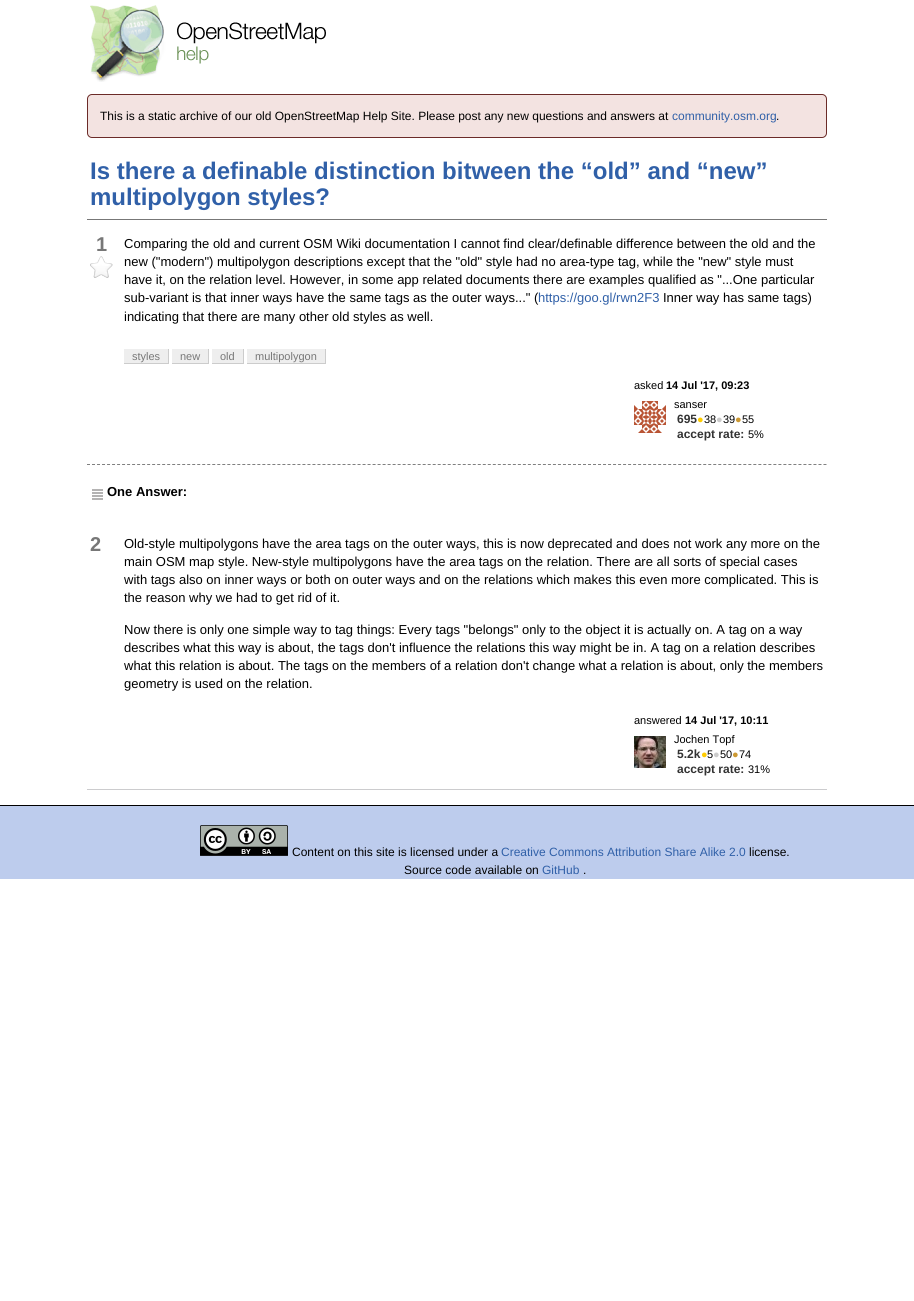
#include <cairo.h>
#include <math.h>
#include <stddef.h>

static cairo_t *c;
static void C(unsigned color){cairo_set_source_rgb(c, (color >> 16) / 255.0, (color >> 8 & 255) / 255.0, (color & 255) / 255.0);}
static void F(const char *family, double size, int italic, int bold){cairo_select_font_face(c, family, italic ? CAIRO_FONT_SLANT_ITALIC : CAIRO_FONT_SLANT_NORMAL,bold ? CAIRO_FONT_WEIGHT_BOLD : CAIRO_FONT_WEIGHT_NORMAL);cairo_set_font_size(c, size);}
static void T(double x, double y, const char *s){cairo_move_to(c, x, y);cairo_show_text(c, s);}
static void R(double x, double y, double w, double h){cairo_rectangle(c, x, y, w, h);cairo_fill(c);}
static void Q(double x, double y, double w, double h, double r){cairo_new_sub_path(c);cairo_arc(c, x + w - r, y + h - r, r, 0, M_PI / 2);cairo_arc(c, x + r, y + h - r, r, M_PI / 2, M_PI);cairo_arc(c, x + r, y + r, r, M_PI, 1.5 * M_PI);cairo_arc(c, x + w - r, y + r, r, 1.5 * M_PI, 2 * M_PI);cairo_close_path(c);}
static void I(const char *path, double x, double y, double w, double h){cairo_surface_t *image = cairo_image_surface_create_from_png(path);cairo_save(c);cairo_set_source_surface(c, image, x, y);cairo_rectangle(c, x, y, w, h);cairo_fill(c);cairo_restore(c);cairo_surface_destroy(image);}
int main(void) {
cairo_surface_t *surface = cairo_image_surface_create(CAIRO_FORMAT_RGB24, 914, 1301);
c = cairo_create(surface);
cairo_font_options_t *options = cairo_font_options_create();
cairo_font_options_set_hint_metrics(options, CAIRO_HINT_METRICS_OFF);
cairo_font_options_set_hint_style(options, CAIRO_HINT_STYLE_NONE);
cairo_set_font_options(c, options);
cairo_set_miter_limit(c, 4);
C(0xffffff);
cairo_paint(c);
I("1.png",90,5,236,77);
C(0xf3e3e1);
Q(87.5,94.5,739,43,4.5);
cairo_fill_preserve(c);
C(0x6b2b28);
cairo_set_line_width(c,1);
cairo_stroke(c);
F("Liberation Sans",12,0,0);
C(0x000000);
T(100,120,"This is a static archive of our old OpenStreetMap Help Site. Please post any new questions and answers at");
C(0x3060a8);
T(672,120,"community.osm.org");
C(0x000000);
T(776,120,".");
C(0x777777);
R(87,219,740,1);
F("Liberation Sans",24,0,1);
C(0x3060a8);
T(90,179,"Is there a definable distinction bitween the “old” and “new”");
T(90,205,"multipolygon styles?");
F("Liberation Sans",20,0,1);
C(0x777777);
T(96,251,"1");
I("2.png",90,256,23,22);
F("Liberation Sans",13,0,0);
C(0x000000);
T(124,248,"Comparing the old and current OSM Wiki documentation I cannot find clear/definable difference between the old and the");
T(124,266,"new (\"modern\") multipolygon descriptions except that the \"old\" style had no area-type tag, while the \"new\" style must");
T(124,284,"have it, on the relation level. However, in some app related documents there are examples qualified as \"...One particular");
T(124,302,"sub-variant is that inner ways have the same tags as the outer ways...\" (");
C(0x3060a8);
T(538,302,"https://goo.gl/rwn2F3");
C(0x000000);
T(663,302,"Inner way has same tags)");
T(124,321,"indicating that there are many other old styles as well.");
C(0xeeeeee);
R(124,349,44,14);
F("Liberation Sans",11,0,0);
C(0x777777);
T(132,360,"styles");
C(0xcccccc);
R(168,349,1,15);
R(124,363,45,1);
C(0xeeeeee);
R(172,349,36,14);
C(0x777777);
T(180,360,"new");
C(0xcccccc);
R(208,349,1,15);
R(172,363,37,1);
C(0xeeeeee);
R(212,349,31,14);
C(0x777777);
T(220,360,"old");
C(0xcccccc);
R(243,349,1,15);
R(212,363,32,1);
C(0xeeeeee);
R(247,349,78,14);
C(0x777777);
T(255,360,"multipolygon");
C(0xcccccc);
R(325,349,1,15);
R(247,363,79,1);
C(0x000000);
T(634,389,"asked");
F("Liberation Sans",11,0,1);
T(666,389,"14 Jul '17, 09:23");
I("3.png",634,401,32,32);
F("Liberation Sans",11,0,0);
T(674,408,"sanser");
F("Liberation Sans",12,0,1);
C(0x333333);
T(677,423,"695");
F("Liberation Sans",11,0,0);
C(0xffcc00);
T(697,423,"●");
C(0x000000);
T(704,423,"38");
C(0xcccccc);
T(716,423,"●");
C(0x000000);
T(723,423,"39");
C(0xcc9933);
T(735,423,"●");
C(0x000000);
T(742,423,"55");
F("Liberation Sans",12,0,1);
C(0x333333);
T(677,438,"accept rate:");
F("Liberation Sans",11,0,0);
C(0x000000);
T(748,438,"5%");
cairo_new_path(c);
cairo_move_to(c,87,464.5);
cairo_line_to(c,827,464.5);
C(0x808080);
cairo_set_dash(c,(double[]){3,2.01},2,0);
cairo_stroke(c);
I("4.png",92,489,11,11);
F("Liberation Sans",13,0,1);
C(0x000000);
T(107,496,"One Answer:");
C(0xccccce);
R(87,789,740,1);
F("Liberation Sans",20,0,1);
C(0x777777);
T(90,551,"2");
F("Liberation Sans",13,0,0);
C(0x000000);
T(124,548,"Old-style multipolygons have the area tags on the outer ways, this is now deprecated and does not work any more on the");
T(124,566,"main OSM map style. New-style multipolygons have the area tags on the relation. There are all sorts of special cases");
T(124,584,"with tags also on inner ways or both on outer ways and on the relations which makes this even more complicated. This is");
T(124,602,"the reason why we had to get rid of it.");
T(124,634,"Now there is only one simple way to tag things: Every tags \"belongs\" only to the object it is actually on. A tag on a way");
T(124,652,"describes what this way is about, the tags don't influence the relations this way might be in. A tag on a relation describes");
T(124,670,"what this relation is about. The tags on the members of a relation don't change what a relation is about, only the members");
T(124,688,"geometry is used on the relation.");
F("Liberation Sans",11,0,0);
T(634,724,"answered");
F("Liberation Sans",11,0,1);
T(685,724,"14 Jul '17, 10:11");
I("5.png",634,736,32,32);
F("Liberation Sans",11,0,0);
T(674,743,"Jochen Topf");
F("Liberation Sans",12,0,1);
C(0x333333);
T(677,758,"5.2k");
F("Liberation Sans",11,0,0);
C(0xffcc00);
T(701,758,"●");
C(0x000000);
T(707,758,"5");
C(0xcccccc);
T(713,758,"●");
C(0x000000);
T(720,758,"50");
C(0xcc9933);
T(732,758,"●");
C(0x000000);
T(739,758,"74");
F("Liberation Sans",12,0,1);
C(0x333333);
T(677,773,"accept rate:");
F("Liberation Sans",11,0,0);
C(0x000000);
T(748,773,"31%");
C(0xbdcced);
R(0,806,914,73);
C(0x000000);
R(0,805,914,1);
I("6.png",200,825,88,31);
F("Liberation Sans",12,0,0);
T(292,856,"Content on this site is licensed under a");
C(0x3060a8);
T(501,856,"Creative Commons Attribution Share Alike 2.0");
C(0x000000);
T(749,856,"license.");
T(404,874,"Source code available on");
C(0x3060a8);
T(542,874,"GitHub");
C(0x000000);
T(583,874,".");
cairo_surface_write_to_png(surface, "o.png");
cairo_font_options_destroy(options);
cairo_destroy(c);
cairo_surface_destroy(surface);
return 0;
}
